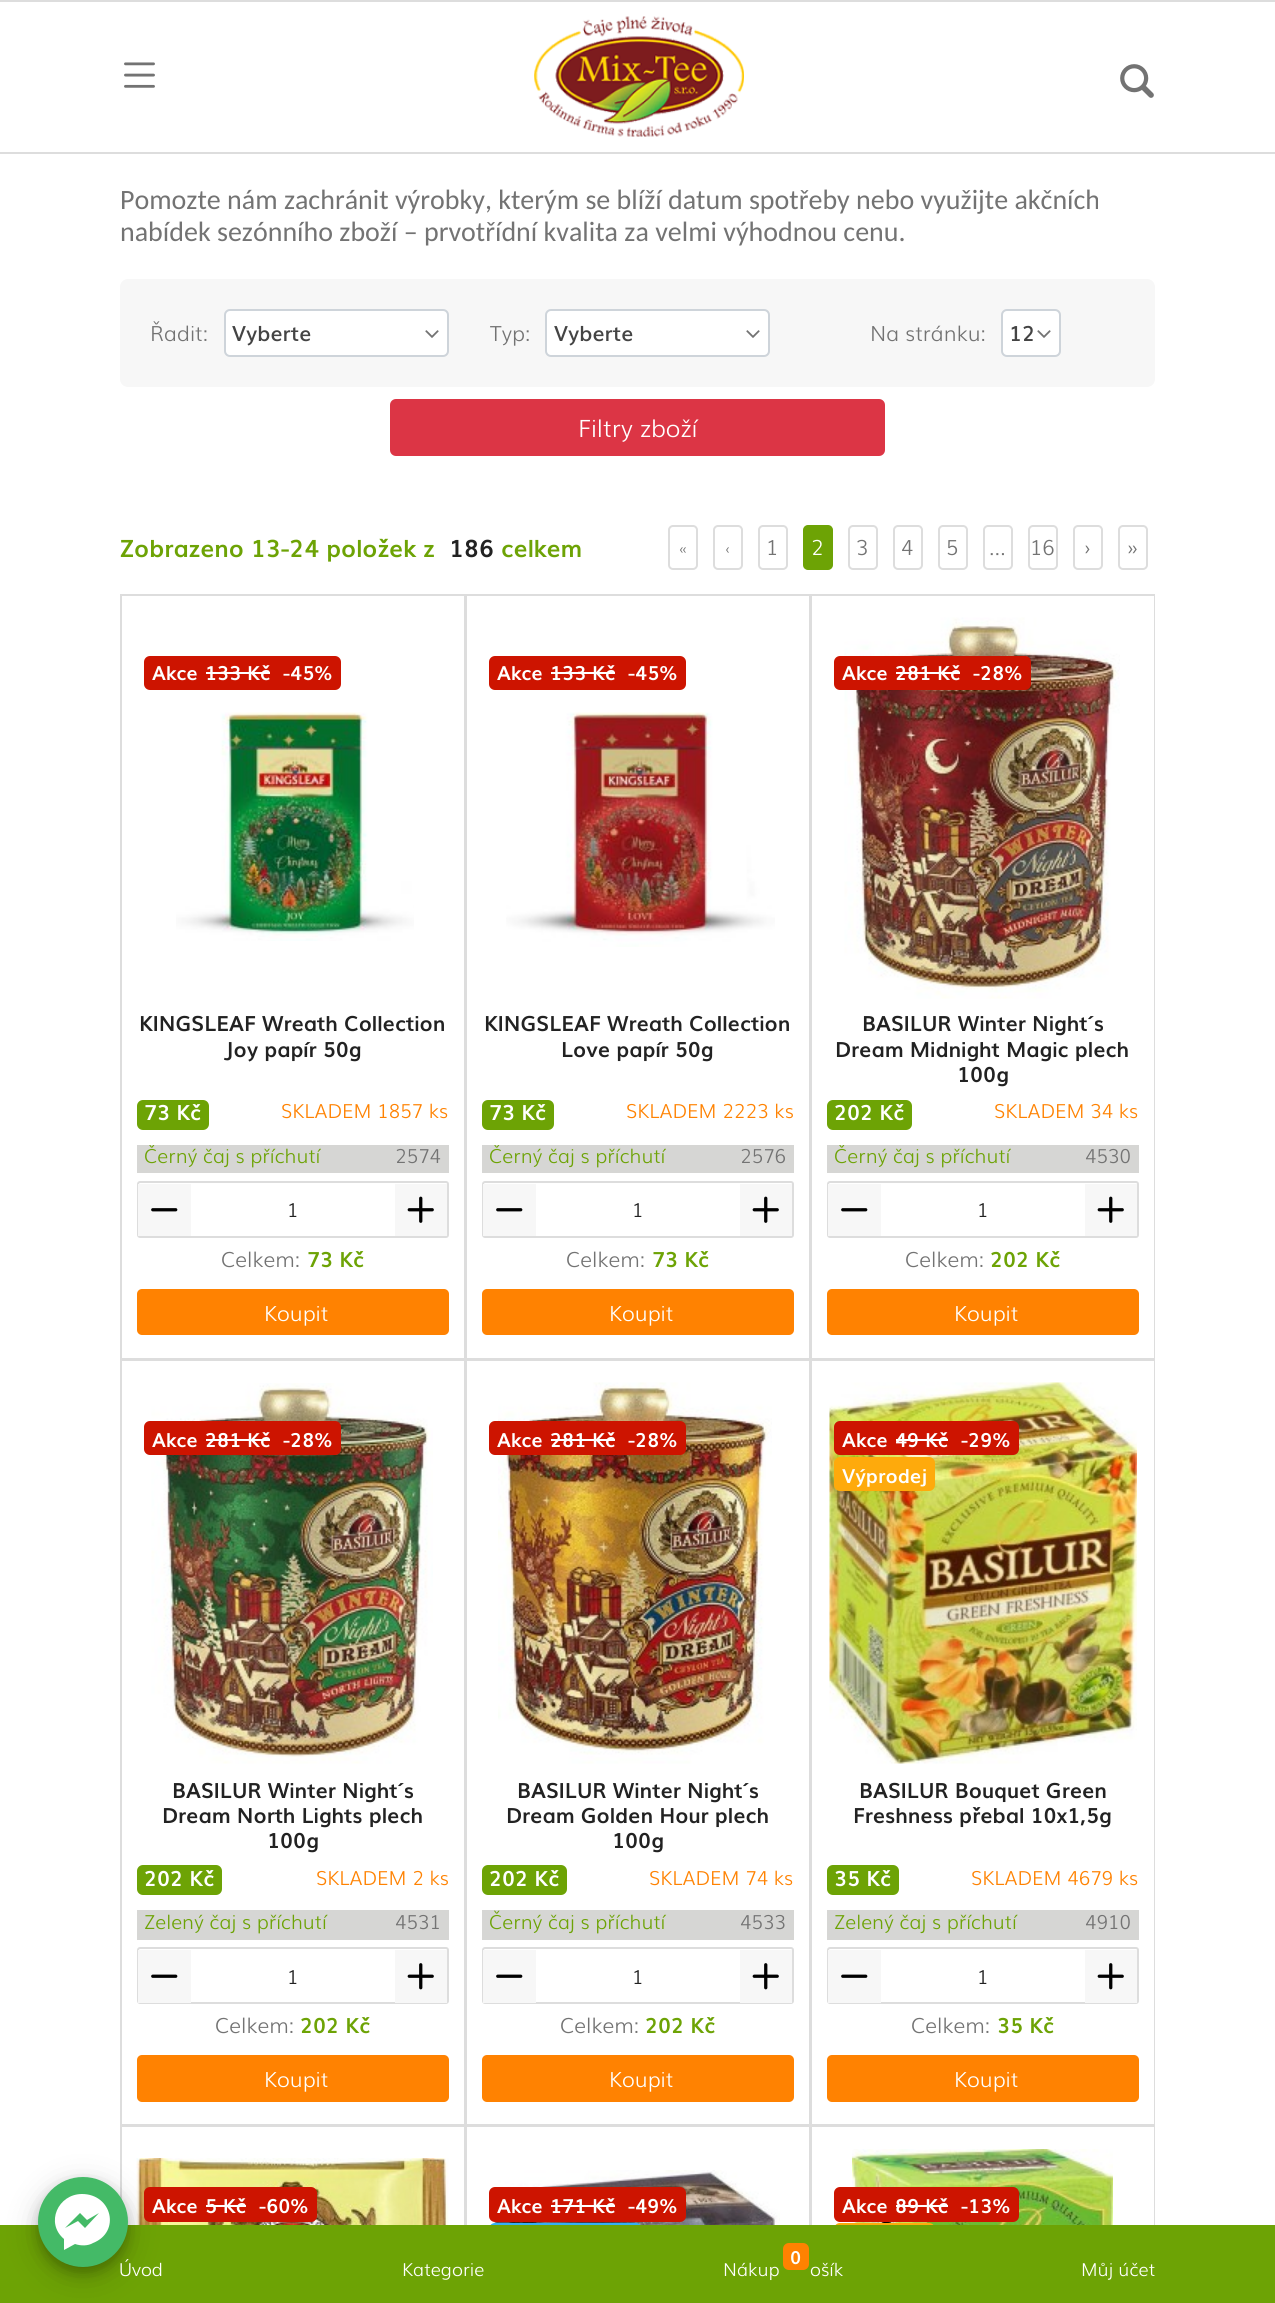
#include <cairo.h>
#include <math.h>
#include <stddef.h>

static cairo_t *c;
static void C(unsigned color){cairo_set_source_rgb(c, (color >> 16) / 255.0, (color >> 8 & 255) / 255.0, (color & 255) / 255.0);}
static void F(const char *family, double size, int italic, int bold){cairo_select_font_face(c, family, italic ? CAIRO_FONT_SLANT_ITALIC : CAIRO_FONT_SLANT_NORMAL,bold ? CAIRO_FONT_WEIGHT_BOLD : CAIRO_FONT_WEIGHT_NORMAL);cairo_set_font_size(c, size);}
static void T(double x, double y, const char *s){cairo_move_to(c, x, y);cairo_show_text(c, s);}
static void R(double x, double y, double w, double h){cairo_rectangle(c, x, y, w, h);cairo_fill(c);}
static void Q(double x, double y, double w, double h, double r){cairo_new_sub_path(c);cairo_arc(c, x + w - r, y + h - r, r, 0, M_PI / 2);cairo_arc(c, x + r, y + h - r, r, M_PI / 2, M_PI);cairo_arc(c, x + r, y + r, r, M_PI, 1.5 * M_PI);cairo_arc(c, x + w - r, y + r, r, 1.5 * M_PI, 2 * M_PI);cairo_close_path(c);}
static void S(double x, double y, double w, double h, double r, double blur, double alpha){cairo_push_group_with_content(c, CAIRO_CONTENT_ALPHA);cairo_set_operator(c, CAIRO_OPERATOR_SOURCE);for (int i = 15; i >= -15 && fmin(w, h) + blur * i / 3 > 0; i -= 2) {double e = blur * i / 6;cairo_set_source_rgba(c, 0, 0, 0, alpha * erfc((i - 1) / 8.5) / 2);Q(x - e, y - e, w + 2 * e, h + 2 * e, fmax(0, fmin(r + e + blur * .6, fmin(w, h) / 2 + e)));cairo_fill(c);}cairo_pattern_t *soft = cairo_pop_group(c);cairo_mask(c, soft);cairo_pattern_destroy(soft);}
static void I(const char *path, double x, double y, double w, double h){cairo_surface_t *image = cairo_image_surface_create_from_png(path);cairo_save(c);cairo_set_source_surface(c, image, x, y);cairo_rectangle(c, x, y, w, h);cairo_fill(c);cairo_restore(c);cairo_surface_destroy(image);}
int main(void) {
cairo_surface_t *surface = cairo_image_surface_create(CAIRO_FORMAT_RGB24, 1275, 2303);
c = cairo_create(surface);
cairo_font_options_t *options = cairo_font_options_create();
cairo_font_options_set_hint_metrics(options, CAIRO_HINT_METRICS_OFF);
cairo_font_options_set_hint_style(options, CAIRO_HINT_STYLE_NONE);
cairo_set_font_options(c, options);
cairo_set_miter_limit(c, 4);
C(0xffffff);
cairo_paint(c);
C(0xdddddd);
R(0,0,1275,2);
R(0,152,1275,2);
I("1.png",124,62,31,26);
I("2.png",534,16,210,121);
I("3.png",1120,64,34,34);
cairo_rectangle(c,121,2127,343,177);
cairo_stroke(c);
C(0xffffff);
R(122,2127,342,98);
I("15.png",136,2158,313,67);
C(0xcd1400);
Q(144,2187,173,35,6);
cairo_fill(c);
cairo_rectangle(c,466,2127,343,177);
C(0xdddddd);
cairo_stroke(c);
C(0xffffff);
R(467,2127,342,98);
I("16.png",493,2170,287,55);
C(0x35b0f6);
Q(489,2223,153,35,6);
cairo_fill(c);
cairo_rectangle(c,811,2127,343,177);
C(0xdddddd);
cairo_stroke(c);
C(0xffffff);
R(812,2127,342,98);
I("17.png",852,2149,261,76);
C(0xfeaa0c);
Q(834,2223,101,35,6);
cairo_fill(c);
C(0x6da305);
R(0,2225,1275,78);
C(0x000000);
S(38,2186,90,90,45,15,.19);
S(38,2183,90,90,45,6,.2);
F("Muli Light",18,0,0);
C(0xffffff);
T(119,2276,"Úvod");
C(0x44ba67);
cairo_new_path(c);
cairo_arc(c,83,2222,45,0,2 * M_PI);
cairo_fill(c);
C(0xffffff);
cairo_new_path(c);
cairo_move_to(c,82,2194);
cairo_curve_to(c,58,2194,45,2223,64,2239);
cairo_line_to(c,64,2250);
cairo_line_to(c,75,2244);
cairo_curve_to(c,81,2246,88,2246,93,2243);
cairo_curve_to(c,121,2232,112,2194,82,2194);
cairo_close_path(c);
cairo_move_to(c,85,2228);
cairo_line_to(c,78,2221);
cairo_line_to(c,65,2228);
cairo_line_to(c,80,2213);
cairo_line_to(c,87,2220);
cairo_line_to(c,99,2213);
cairo_close_path(c);
cairo_fill(c);
F("Carlito",28,0,0);
C(0x737373);
T(120,209,"Pomozte nám zachránit výrobky, kterým se blíží datum spotřeby nebo využijte akčních");
T(120,241,"nabídek sezónního zboží – prvotřídní kvalita za velmi výhodnou cenu.");
C(0xf7f7f7);
Q(120,279,1035,108,8);
cairo_fill(c);
F("Muli Light",21,0,0);
C(0x737373);
T(150,341,"Řadit:");
C(0xffffff);
Q(225,310,223,46,5);
cairo_fill_preserve(c);
C(0xced4da);
cairo_stroke(c);
F("Muli SemiBold",21,0,0);
C(0x444444);
T(232,341,"Vyberte");
I("4.png",425,330,14,8);
F("Muli Light",21,0,0);
C(0x737373);
T(490,341,"Typ:");
C(0xffffff);
Q(546,310,223,46,5);
cairo_fill_preserve(c);
C(0xced4da);
cairo_stroke(c);
F("Muli SemiBold",21,0,0);
C(0x444444);
T(554,341,"Vyberte");
I("4.png",746,330,14,8);
F("Muli Light",21,0,0);
C(0x737373);
T(870,341,"Na stránku:");
C(0xffffff);
Q(1002,310,58,46,5);
cairo_fill_preserve(c);
C(0xced4da);
cairo_stroke(c);
F("Muli SemiBold",21,0,0);
C(0x444444);
T(1009,341,"12");
I("4.png",1037,330,14,8);
C(0xdc3545);
Q(391,400,493,55,5);
cairo_fill_preserve(c);
cairo_stroke(c);
F("Muli Light",24,0,0);
C(0xffffff);
T(578,437,"Filtry zboží");
F("Muli",24,0,1);
C(0x6da305);
T(120,557,"Zobrazeno 13-24 položek z");
C(0x222222);
T(449,557,"186");
C(0x6da305);
T(501,557,"celkem");
Q(669,526,28,43,4);
C(0xdddddd);
cairo_stroke(c);
F("Muli Light",15,0,0);
C(0x737373);
T(679,554,"«");
Q(714,526,28,43,4);
C(0xdddddd);
cairo_stroke(c);
C(0x737373);
T(725,554,"‹");
Q(759,526,28,43,4);
C(0xdddddd);
cairo_stroke(c);
F("Muli Light",21,0,0);
C(0x737373);
T(766,555,"1");
C(0x6da305);
Q(804,526,28,43,4);
cairo_fill_preserve(c);
cairo_stroke(c);
C(0xffffff);
T(811,555,"2");
Q(849,526,28,43,4);
C(0xdddddd);
cairo_stroke(c);
C(0x737373);
T(856,555,"3");
Q(894,526,28,43,4);
C(0xdddddd);
cairo_stroke(c);
C(0x737373);
T(901,555,"4");
Q(939,526,28,43,4);
C(0xdddddd);
cairo_stroke(c);
C(0x737373);
T(946,555,"5");
Q(1029,526,28,43,4);
C(0xdddddd);
cairo_stroke(c);
C(0x737373);
T(1030,555,"16");
Q(1074,526,28,43,4);
C(0xdddddd);
cairo_stroke(c);
C(0x737373);
T(1084,555,"›");
Q(1119,526,28,43,4);
C(0xdddddd);
cairo_stroke(c);
C(0x737373);
T(1127,555,"»");
Q(984,526,28,43,4);
C(0xdddddd);
cairo_stroke(c);
C(0x737373);
T(989,555,"…");
cairo_rectangle(c,121,595,343,763);
C(0xdddddd);
cairo_stroke(c);
C(0xffffff);
R(122,596,342,762);
C(0xcd1400);
Q(144,656,197,34,6);
cairo_fill(c);
F("Muli",19.5,0,1);
C(0xffffff);
T(152,680,"Akce");
T(205,680,"133 Kč");
R(206,672,64,2);
T(283,680,"-45%");
I("5.png",176,712,238,229);
F("Muli",21,0,1);
C(0x222222);
T(139,1031,"KINGSLEAF Wreath Collection");
T(223,1057,"Joy papír 50g");
C(0x6da305);
Q(137,1100,72,30,6);
cairo_fill(c);
C(0xffffff);
T(144,1120,"73 Kč");
F("Muli Light",19.5,0,0);
C(0xff8201);
T(281,1118,"SKLADEM 1857 ks");
C(0xd6d6d4);
R(137,1145,312,28);
cairo_save(c);
cairo_rectangle(c,144,1145,177,24);
cairo_clip(c);
C(0x6da305);
T(144,1163,"Černý čaj s příchutí");
cairo_restore(c);
C(0x737373);
T(395,1163,"2574");
Q(138,1182,310,55,2);
C(0xdddddd);
cairo_stroke(c);
C(0xf7f7f7);
R(138,1184,53,52);
I("6.png",151,1208,27,4);
C(0x222222);
T(287,1217,"1");
C(0xf7f7f7);
R(395,1184,52,52);
I("7.png",407,1196,27,27);
F("Muli Light",21,0,0);
C(0x737373);
T(221,1267,"Celkem:");
F("Muli",21,0,1);
C(0x6da305);
T(307,1267,"73 Kč");
C(0xff8201);
Q(137,1289,312,46,5);
cairo_fill(c);
F("Muli Light",21,0,0);
C(0xffffff);
T(264,1321,"Koupit");
cairo_rectangle(c,466,595,343,763);
C(0xdddddd);
cairo_stroke(c);
C(0xffffff);
R(467,596,342,762);
C(0xcd1400);
Q(489,656,197,34,6);
cairo_fill(c);
F("Muli",19.5,0,1);
C(0xffffff);
T(497,680,"Akce");
T(550,680,"133 Kč");
R(551,672,64,2);
T(628,680,"-45%");
I("8.png",506,712,269,235);
F("Muli",21,0,1);
C(0x222222);
T(484,1031,"KINGSLEAF Wreath Collection");
T(561,1057,"Love papír 50g");
C(0x6da305);
Q(482,1100,72,30,6);
cairo_fill(c);
C(0xffffff);
T(489,1120,"73 Kč");
F("Muli Light",19.5,0,0);
C(0xff8201);
T(626,1118,"SKLADEM 2223 ks");
C(0xd6d6d4);
R(482,1145,312,28);
cairo_save(c);
cairo_rectangle(c,489,1145,177,24);
cairo_clip(c);
C(0x6da305);
T(489,1163,"Černý čaj s příchutí");
cairo_restore(c);
C(0x737373);
T(740,1163,"2576");
Q(483,1182,310,55,2);
C(0xdddddd);
cairo_stroke(c);
C(0xf7f7f7);
R(483,1184,53,52);
I("6.png",496,1208,27,4);
C(0x222222);
T(632,1217,"1");
C(0xf7f7f7);
R(740,1184,52,52);
I("7.png",752,1196,27,27);
F("Muli Light",21,0,0);
C(0x737373);
T(566,1267,"Celkem:");
F("Muli",21,0,1);
C(0x6da305);
T(652,1267,"73 Kč");
C(0xff8201);
Q(482,1289,312,46,5);
cairo_fill(c);
F("Muli Light",21,0,0);
C(0xffffff);
T(609,1321,"Koupit");
cairo_rectangle(c,811,595,343,763);
C(0xdddddd);
cairo_stroke(c);
C(0xffffff);
R(812,596,342,762);
I("9.png",844,617,276,382);
C(0xcd1400);
Q(834,656,197,34,6);
cairo_fill(c);
F("Muli",19.5,0,1);
C(0xffffff);
T(842,680,"Akce");
T(895,680,"281 Kč");
R(896,672,64,2);
T(973,680,"-28%");
F("Muli",21,0,1);
C(0x222222);
T(862,1031,"BASILUR Winter Night´s");
T(835,1057,"Dream Midnight Magic plech");
T(957,1082,"100g");
C(0x6da305);
Q(827,1100,85,30,6);
cairo_fill(c);
C(0xffffff);
T(834,1120,"202 Kč");
F("Muli Light",19.5,0,0);
C(0xff8201);
T(994,1118,"SKLADEM 34 ks");
C(0xd6d6d4);
R(827,1145,312,28);
cairo_save(c);
cairo_rectangle(c,834,1145,177,24);
cairo_clip(c);
C(0x6da305);
T(834,1163,"Černý čaj s příchutí");
cairo_restore(c);
C(0x737373);
T(1085,1163,"4530");
Q(828,1182,310,55,2);
C(0xdddddd);
cairo_stroke(c);
C(0xf7f7f7);
R(828,1184,53,52);
I("6.png",841,1208,27,4);
C(0x222222);
T(977,1217,"1");
C(0xf7f7f7);
R(1085,1184,52,52);
I("7.png",1097,1196,27,27);
F("Muli Light",21,0,0);
C(0x737373);
T(905,1267,"Celkem:");
F("Muli",21,0,1);
C(0x6da305);
T(990,1267,"202 Kč");
C(0xff8201);
Q(827,1289,312,46,5);
cairo_fill(c);
F("Muli Light",21,0,0);
C(0xffffff);
T(954,1321,"Koupit");
cairo_rectangle(c,121,1360,343,765);
C(0xdddddd);
cairo_stroke(c);
C(0xffffff);
R(463,1361,1,763);
I("10.png",151,1383,282,381);
C(0xcd1400);
Q(144,1421,197,34,6);
cairo_fill(c);
F("Muli",19.5,0,1);
C(0xffffff);
T(152,1447,"Akce");
T(205,1447,"281 Kč");
R(206,1439,64,2);
T(283,1447,"-28%");
F("Muli",21,0,1);
C(0x222222);
T(172,1798,"BASILUR Winter Night´s");
T(162,1823,"Dream North Lights plech");
T(267,1848,"100g");
C(0x6da305);
Q(137,1865,85,30,6);
cairo_fill(c);
C(0xffffff);
T(144,1886,"202 Kč");
F("Muli Light",19.5,0,0);
C(0xff8201);
T(316,1885,"SKLADEM 2 ks");
C(0xd6d6d4);
R(137,1910,312,30);
C(0x6da305);
T(144,1929,"Zelený čaj s příchutí");
C(0x737373);
T(395,1929,"4531");
Q(138,1948,310,55,2);
C(0xdddddd);
cairo_stroke(c);
C(0xf7f7f7);
R(138,1950,53,53);
I("11.png",151,1974,27,4);
C(0x222222);
T(287,1984,"1");
C(0xf7f7f7);
R(395,1950,52,53);
I("12.png",407,1963,27,27);
F("Muli Light",21,0,0);
C(0x737373);
T(215,2033,"Celkem:");
F("Muli",21,0,1);
C(0x6da305);
T(300,2033,"202 Kč");
C(0xff8201);
Q(137,2055,312,47,5);
cairo_fill(c);
F("Muli Light",21,0,0);
C(0xffffff);
T(264,2087,"Koupit");
cairo_rectangle(c,466,1360,343,765);
C(0xdddddd);
cairo_stroke(c);
C(0xffffff);
R(808,1361,1,763);
I("13.png",498,1382,274,382);
C(0xcd1400);
Q(489,1421,197,34,6);
cairo_fill(c);
F("Muli",19.5,0,1);
C(0xffffff);
T(497,1447,"Akce");
T(550,1447,"281 Kč");
R(551,1439,64,2);
T(628,1447,"-28%");
F("Muli",21,0,1);
C(0x222222);
T(517,1798,"BASILUR Winter Night´s");
T(506,1823,"Dream Golden Hour plech");
T(612,1848,"100g");
C(0x6da305);
Q(482,1865,85,30,6);
cairo_fill(c);
C(0xffffff);
T(489,1886,"202 Kč");
F("Muli Light",19.5,0,0);
C(0xff8201);
T(649,1885,"SKLADEM 74 ks");
C(0xd6d6d4);
R(482,1910,312,30);
C(0x6da305);
T(489,1929,"Černý čaj s příchutí");
C(0x737373);
T(740,1929,"4533");
Q(483,1948,310,55,2);
C(0xdddddd);
cairo_stroke(c);
C(0xf7f7f7);
R(483,1950,53,53);
I("11.png",496,1974,27,4);
C(0x222222);
T(632,1984,"1");
C(0xf7f7f7);
R(740,1950,52,53);
I("12.png",752,1963,27,27);
F("Muli Light",21,0,0);
C(0x737373);
T(560,2033,"Celkem:");
F("Muli",21,0,1);
C(0x6da305);
T(645,2033,"202 Kč");
C(0xff8201);
Q(482,2055,312,47,5);
cairo_fill(c);
F("Muli Light",21,0,0);
C(0xffffff);
T(609,2087,"Koupit");
cairo_rectangle(c,811,1360,343,765);
C(0xdddddd);
cairo_stroke(c);
C(0xffffff);
R(1153,1361,1,763);
I("14.png",829,1382,308,382);
C(0xcd1400);
Q(834,1421,185,34,6);
cairo_fill(c);
F("Muli",19.5,0,1);
C(0xffffff);
T(842,1447,"Akce");
T(895,1447,"49 Kč");
R(896,1439,52,2);
T(961,1447,"-29%");
C(0xfeaa0c);
Q(834,1457,101,34,6);
cairo_fill(c);
C(0xffffff);
T(842,1483,"Výprodej");
F("Muli",21,0,1);
C(0x222222);
T(859,1798,"BASILUR Bouquet Green");
T(853,1823,"Freshness přebal 10x1,5g");
C(0x6da305);
Q(827,1865,72,30,6);
cairo_fill(c);
C(0xffffff);
T(834,1886,"35 Kč");
F("Muli Light",19.5,0,0);
C(0xff8201);
T(971,1885,"SKLADEM 4679 ks");
C(0xd6d6d4);
R(827,1910,312,30);
C(0x6da305);
T(834,1929,"Zelený čaj s příchutí");
C(0x737373);
T(1085,1929,"4910");
Q(828,1948,310,55,2);
C(0xdddddd);
cairo_stroke(c);
C(0xf7f7f7);
R(828,1950,53,53);
I("11.png",841,1974,27,4);
C(0x222222);
T(977,1984,"1");
C(0xf7f7f7);
R(1085,1950,52,53);
I("12.png",1097,1963,27,27);
F("Muli Light",21,0,0);
C(0x737373);
T(911,2033,"Celkem:");
F("Muli",21,0,1);
C(0x6da305);
T(997,2033,"35 Kč");
C(0xff8201);
Q(827,2055,312,47,5);
cairo_fill(c);
F("Muli Light",21,0,0);
C(0xffffff);
T(954,2087,"Koupit");
F("Muli",19.5,0,1);
T(152,2213,"Akce");
T(205,2213,"5 Kč");
R(206,2205,40,2);
T(259,2213,"-60%");
C(0xcd1400);
Q(489,2187,197,35,6);
cairo_fill(c);
C(0xffffff);
T(497,2213,"Akce");
T(550,2213,"171 Kč");
R(551,2205,64,2);
T(628,2213,"-49%");
C(0xcd1400);
Q(834,2187,185,35,6);
cairo_fill(c);
C(0xffffff);
T(842,2213,"Akce");
T(895,2213,"89 Kč");
R(896,2205,52,2);
T(961,2213,"-13%");
F("Muli Light",18,0,0);
T(402,2276,"Kategorie");
C(0xff8201);
Q(783,2243,26,27,6);
cairo_fill(c);
F("Muli",18,0,1);
C(0xffffff);
T(790,2264,"0");
F("Muli Light",18,0,0);
T(723,2276,"Nákup");
T(810,2276,"ošík");
T(1081,2276,"Můj účet");
cairo_surface_write_to_png(surface, "o.png");
cairo_font_options_destroy(options);
cairo_destroy(c);
cairo_surface_destroy(surface);
return 0;
}
